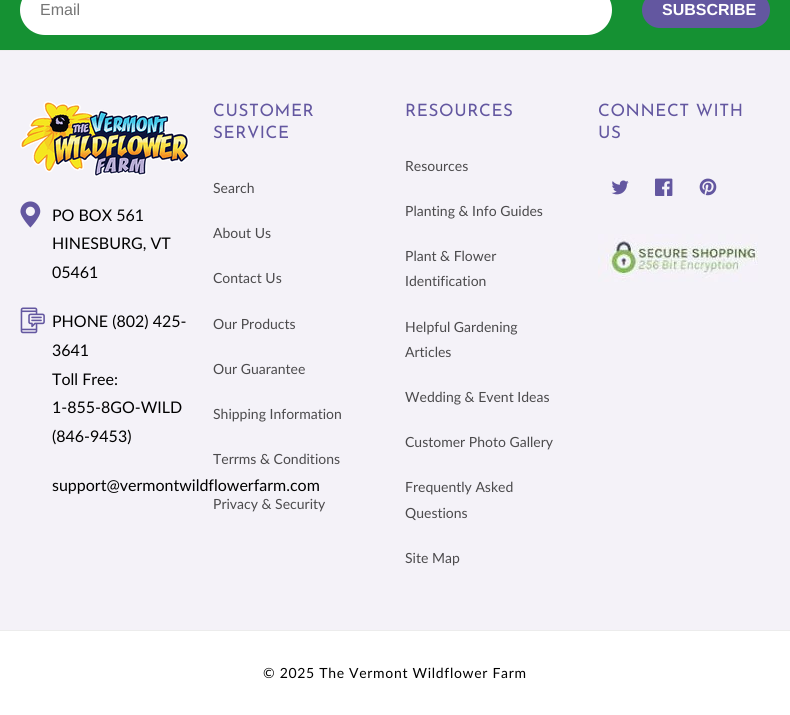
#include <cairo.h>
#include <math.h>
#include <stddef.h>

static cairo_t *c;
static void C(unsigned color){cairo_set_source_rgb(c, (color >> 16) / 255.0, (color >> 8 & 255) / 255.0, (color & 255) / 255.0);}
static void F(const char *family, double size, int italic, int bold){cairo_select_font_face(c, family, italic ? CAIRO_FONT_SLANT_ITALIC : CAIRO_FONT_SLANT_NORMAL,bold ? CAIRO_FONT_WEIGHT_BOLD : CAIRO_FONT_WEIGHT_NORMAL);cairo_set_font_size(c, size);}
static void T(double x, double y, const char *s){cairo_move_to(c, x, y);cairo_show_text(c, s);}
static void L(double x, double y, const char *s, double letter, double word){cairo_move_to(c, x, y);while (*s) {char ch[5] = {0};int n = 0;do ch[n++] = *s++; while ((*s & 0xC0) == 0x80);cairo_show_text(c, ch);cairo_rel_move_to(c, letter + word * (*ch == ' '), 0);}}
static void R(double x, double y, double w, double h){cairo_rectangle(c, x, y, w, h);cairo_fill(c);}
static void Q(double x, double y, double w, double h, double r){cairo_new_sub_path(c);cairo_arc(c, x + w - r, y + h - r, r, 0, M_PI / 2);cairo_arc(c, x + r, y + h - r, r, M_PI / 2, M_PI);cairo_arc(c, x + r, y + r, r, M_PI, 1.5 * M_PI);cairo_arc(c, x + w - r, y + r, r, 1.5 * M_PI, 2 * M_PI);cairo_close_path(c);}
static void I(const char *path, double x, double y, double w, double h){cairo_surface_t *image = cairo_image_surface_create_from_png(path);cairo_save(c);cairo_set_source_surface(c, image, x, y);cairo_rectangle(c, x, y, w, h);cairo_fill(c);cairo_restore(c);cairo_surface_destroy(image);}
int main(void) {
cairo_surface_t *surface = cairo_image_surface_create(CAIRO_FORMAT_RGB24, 790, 715);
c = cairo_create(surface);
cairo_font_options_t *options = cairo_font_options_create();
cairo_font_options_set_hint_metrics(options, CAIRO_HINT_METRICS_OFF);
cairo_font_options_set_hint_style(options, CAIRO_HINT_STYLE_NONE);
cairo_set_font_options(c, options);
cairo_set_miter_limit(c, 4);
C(0xffffff);
cairo_paint(c);
C(0x159133);
R(0,0,790,50);
C(0xffffff);
Q(20,-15,592,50,25);
cairo_fill(c);
F("Liberation Sans",16,0,0);
C(0x757575);
T(40,15,"Email");
C(0x6357a0);
Q(642,-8,128,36,18);
cairo_fill(c);
F("Liberation Sans",16,0,1);
C(0xffffff);
T(662,15,"SUBSCRIBE");
C(0xececec);
R(0,50,790,1);
C(0xf4f2f8);
R(0,51,790,579);
F("Josefin Sans",17,0,0);
C(0x6357a0);
L(213,116,"CUSTOMER",.6,0);
L(213,138,"SERVICE",.6,0);
F("Lato",14,0,0);
C(0x4b4a4c);
T(213,193,"Search");
T(213,238,"About Us");
T(213,283,"Contact Us");
T(213,329,"Our Products");
T(213,374,"Our Guarantee");
T(213,419,"Shipping Information");
T(213,464,"Terrms & Conditions");
T(213,509,"Privacy & Security");
F("Josefin Sans",17,0,0);
C(0x6357a0);
L(405,116,"RESOURCES",.6,0);
F("Lato",14,0,0);
C(0x4b4a4c);
T(405,171,"Resources");
T(405,216,"Planting & Info Guides");
T(405,261,"Plant & Flower");
T(405,286,"Identification");
T(405,332,"Helpful Gardening");
T(405,357,"Articles");
T(405,402,"Wedding & Event Ideas");
T(405,447,"Customer Photo Gallery");
T(405,492,"Frequently Asked");
T(405,518,"Questions");
T(405,563,"Site Map");
F("Josefin Sans",17,0,0);
C(0x6357a0);
L(598,116,"CONNECT WITH",.6,0);
L(598,138,"US",.6,0);
I("1.png",611,180,18,15);
I("2.png",655,178,18,18);
I("3.png",699,178,18,18);
I("4.png",598,234,160,48);
I("5.png",20,101,170,76);
I("6.png",20,201,21,27);
F("Lato",16,0,0);
C(0x000000);
T(52,221,"PO BOX 561");
T(52,249,"HINESBURG, VT");
T(52,278,"05461");
I("7.png",20,307,25,27);
T(52,327,"PHONE (802) 425-");
T(52,356,"3641");
T(52,385,"Toll Free:");
T(52,413,"1-855-8GO-WILD");
T(52,442,"(846-9453)");
T(52,491,"support@vermontwildflowerfarm.com");
C(0xececec);
R(0,630,790,1);
F("Lato",14,0,0);
C(0x000000);
L(263,678,"© 2025 The Vermont Wildflower Farm",.7,0);
cairo_surface_write_to_png(surface, "o.png");
cairo_font_options_destroy(options);
cairo_destroy(c);
cairo_surface_destroy(surface);
return 0;
}
